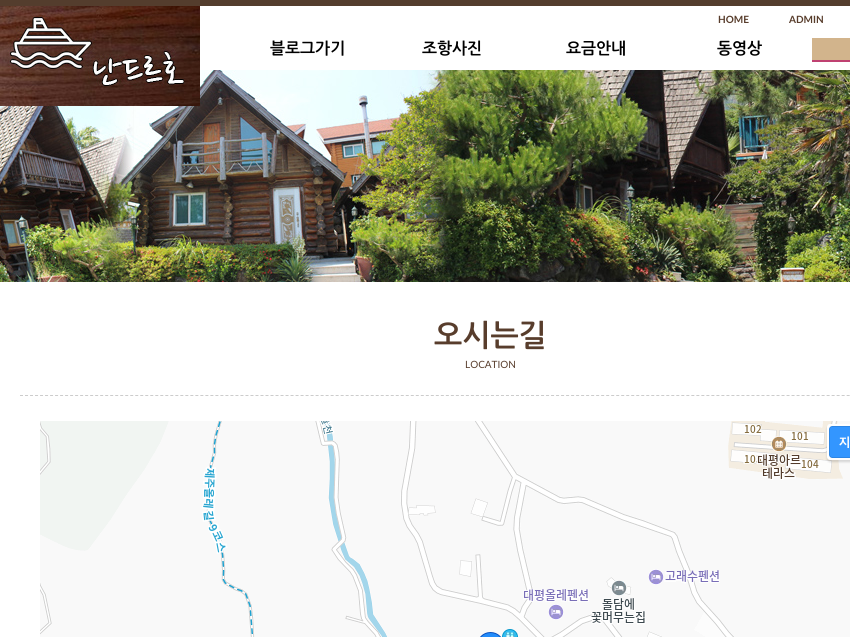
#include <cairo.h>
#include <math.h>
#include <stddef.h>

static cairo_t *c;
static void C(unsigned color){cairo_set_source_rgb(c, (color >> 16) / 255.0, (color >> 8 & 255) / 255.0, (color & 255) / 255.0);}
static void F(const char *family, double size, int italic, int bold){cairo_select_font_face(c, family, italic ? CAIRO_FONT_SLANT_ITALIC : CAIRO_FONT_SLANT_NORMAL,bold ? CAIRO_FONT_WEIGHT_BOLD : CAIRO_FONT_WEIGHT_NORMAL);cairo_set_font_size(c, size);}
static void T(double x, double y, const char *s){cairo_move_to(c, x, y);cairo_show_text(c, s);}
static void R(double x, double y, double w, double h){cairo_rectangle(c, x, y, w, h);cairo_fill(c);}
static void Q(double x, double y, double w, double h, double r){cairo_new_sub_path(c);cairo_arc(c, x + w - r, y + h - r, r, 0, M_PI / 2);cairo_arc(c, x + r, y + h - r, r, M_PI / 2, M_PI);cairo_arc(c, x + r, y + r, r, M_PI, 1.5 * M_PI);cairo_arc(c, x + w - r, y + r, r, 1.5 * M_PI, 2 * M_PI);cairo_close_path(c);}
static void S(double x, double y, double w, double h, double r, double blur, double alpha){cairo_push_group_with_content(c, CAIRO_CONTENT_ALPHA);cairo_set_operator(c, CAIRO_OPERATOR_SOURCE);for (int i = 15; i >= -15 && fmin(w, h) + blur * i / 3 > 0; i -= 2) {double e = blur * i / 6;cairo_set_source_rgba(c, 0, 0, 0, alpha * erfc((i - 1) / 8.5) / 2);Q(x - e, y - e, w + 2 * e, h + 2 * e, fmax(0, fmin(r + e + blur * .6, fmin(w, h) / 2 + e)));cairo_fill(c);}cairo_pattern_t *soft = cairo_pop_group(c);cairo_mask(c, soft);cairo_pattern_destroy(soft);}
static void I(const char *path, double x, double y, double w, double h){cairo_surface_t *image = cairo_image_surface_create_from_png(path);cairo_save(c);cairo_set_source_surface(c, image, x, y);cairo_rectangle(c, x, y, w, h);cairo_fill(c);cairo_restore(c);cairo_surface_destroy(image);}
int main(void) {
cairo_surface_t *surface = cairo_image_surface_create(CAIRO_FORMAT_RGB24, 850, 637);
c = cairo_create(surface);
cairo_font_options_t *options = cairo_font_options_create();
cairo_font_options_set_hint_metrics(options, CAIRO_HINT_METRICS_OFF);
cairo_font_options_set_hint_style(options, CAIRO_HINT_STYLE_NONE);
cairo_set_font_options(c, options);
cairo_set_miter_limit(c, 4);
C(0xffffff);
cairo_paint(c);
C(0x543d2d);
R(0,0,850,6);
I("2.png",0,70,850,212);
I("1.png",0,6,200,100);
F("Lato",10,0,1);
C(0x583d2c);
T(718,23,"HOME");
T(789,23,"ADMIN");
F("NanumGothic",16,0,1);
C(0x000000);
T(270,54,"블로그가기");
T(422,54,"조항사진");
T(566,54,"요금안내");
T(717,54,"동영상");
C(0xd2b48c);
R(812,38,38,22);
C(0xbf4171);
R(812,60,38,2);
cairo_new_path(c);
cairo_move_to(c,20,395.5);
cairo_line_to(c,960,395.5);
C(0xcccccc);
cairo_set_line_width(c,1);
cairo_set_dash(c,(double[]){3,2.01},2,0);
cairo_stroke(c);
F("NanumGothic",30,0,1);
C(0x583d2c);
T(434,346,"오시는길");
F("Lato",10,0,0);
T(465,368,"LOCATION");
I("3.png",40,421,219,216);
I("4.png",259,421,256,216);
I("5.png",515,421,256,216);
I("6.png",771,421,79,216);
I("7.png",480,632,21,5);
C(0x000000);
S(827,426,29,36,3,1,.15);
C(0xffffff);
Q(827,424,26,36,3);
cairo_fill(c);
I("8.png",829,426,21,32);
cairo_surface_write_to_png(surface, "o.png");
cairo_font_options_destroy(options);
cairo_destroy(c);
cairo_surface_destroy(surface);
return 0;
}
